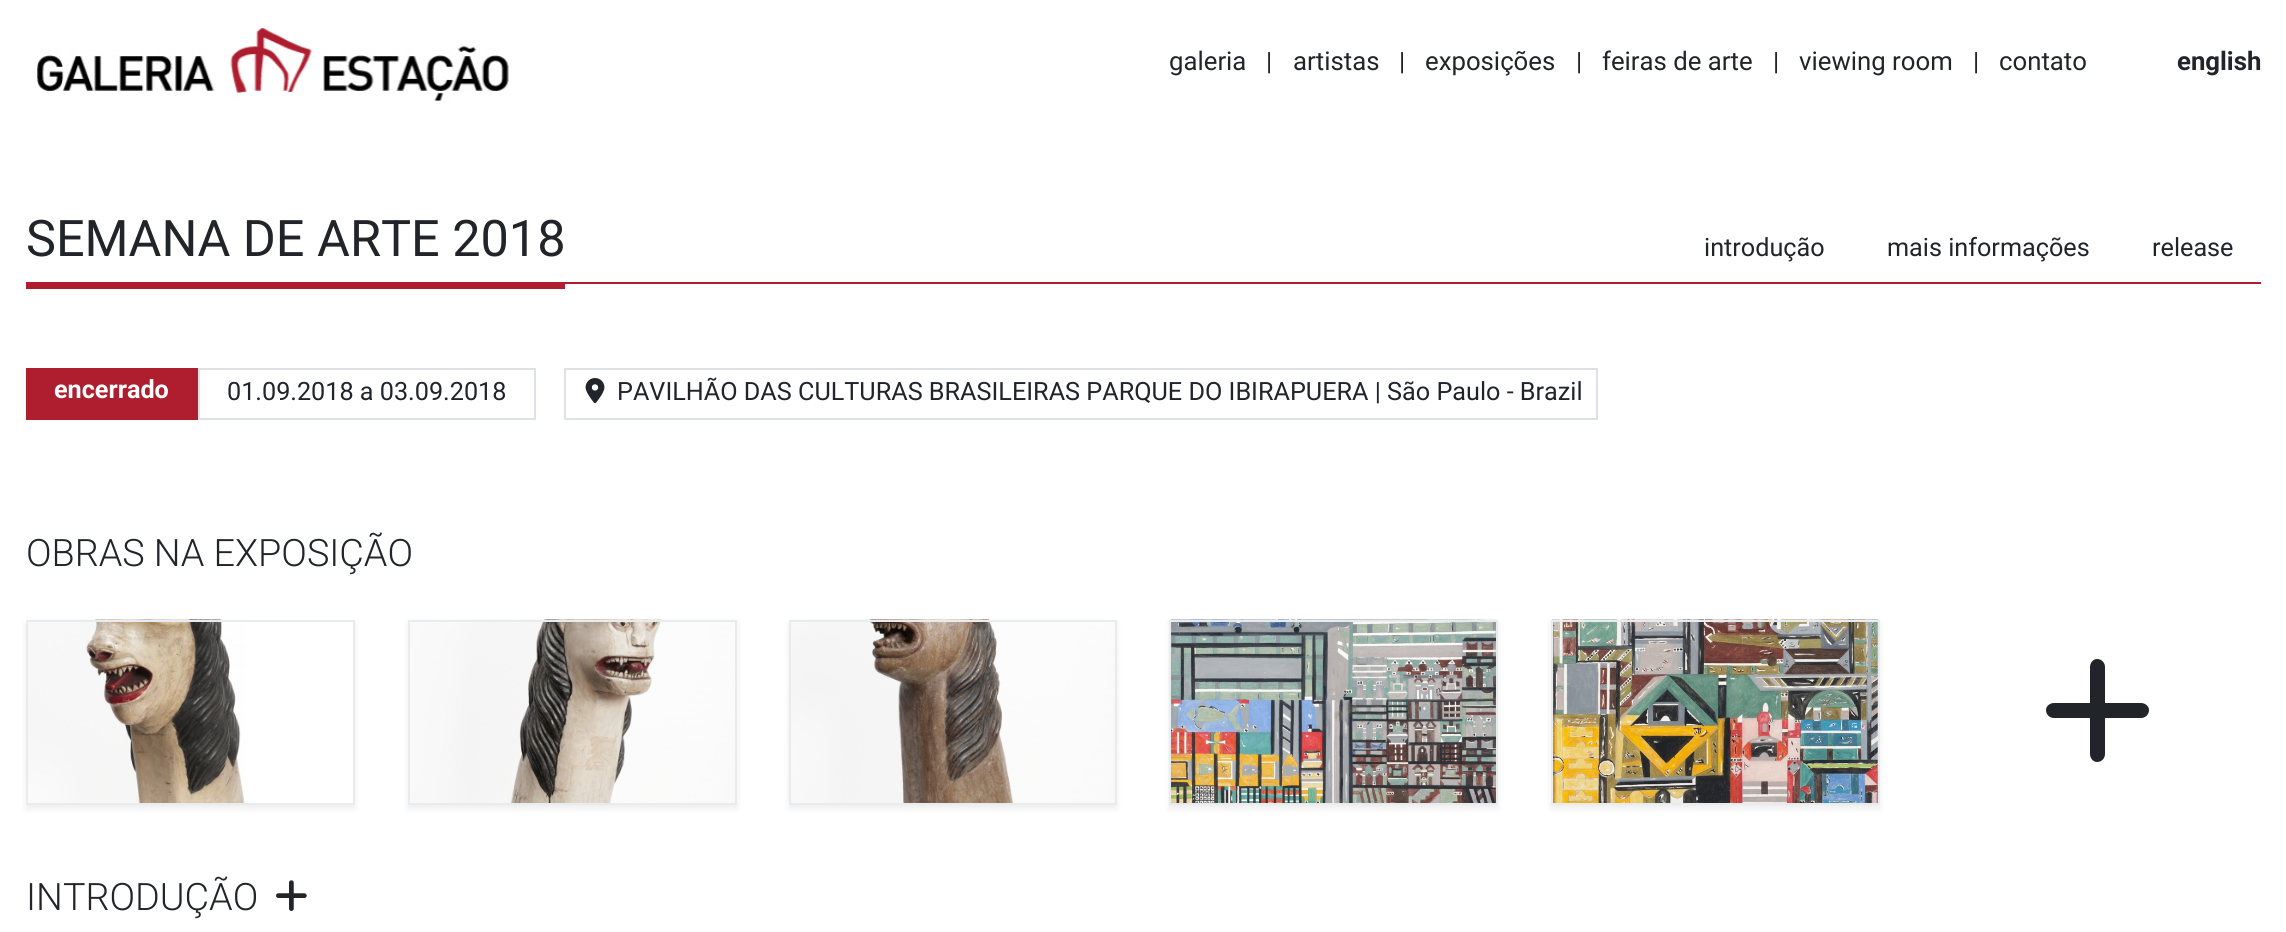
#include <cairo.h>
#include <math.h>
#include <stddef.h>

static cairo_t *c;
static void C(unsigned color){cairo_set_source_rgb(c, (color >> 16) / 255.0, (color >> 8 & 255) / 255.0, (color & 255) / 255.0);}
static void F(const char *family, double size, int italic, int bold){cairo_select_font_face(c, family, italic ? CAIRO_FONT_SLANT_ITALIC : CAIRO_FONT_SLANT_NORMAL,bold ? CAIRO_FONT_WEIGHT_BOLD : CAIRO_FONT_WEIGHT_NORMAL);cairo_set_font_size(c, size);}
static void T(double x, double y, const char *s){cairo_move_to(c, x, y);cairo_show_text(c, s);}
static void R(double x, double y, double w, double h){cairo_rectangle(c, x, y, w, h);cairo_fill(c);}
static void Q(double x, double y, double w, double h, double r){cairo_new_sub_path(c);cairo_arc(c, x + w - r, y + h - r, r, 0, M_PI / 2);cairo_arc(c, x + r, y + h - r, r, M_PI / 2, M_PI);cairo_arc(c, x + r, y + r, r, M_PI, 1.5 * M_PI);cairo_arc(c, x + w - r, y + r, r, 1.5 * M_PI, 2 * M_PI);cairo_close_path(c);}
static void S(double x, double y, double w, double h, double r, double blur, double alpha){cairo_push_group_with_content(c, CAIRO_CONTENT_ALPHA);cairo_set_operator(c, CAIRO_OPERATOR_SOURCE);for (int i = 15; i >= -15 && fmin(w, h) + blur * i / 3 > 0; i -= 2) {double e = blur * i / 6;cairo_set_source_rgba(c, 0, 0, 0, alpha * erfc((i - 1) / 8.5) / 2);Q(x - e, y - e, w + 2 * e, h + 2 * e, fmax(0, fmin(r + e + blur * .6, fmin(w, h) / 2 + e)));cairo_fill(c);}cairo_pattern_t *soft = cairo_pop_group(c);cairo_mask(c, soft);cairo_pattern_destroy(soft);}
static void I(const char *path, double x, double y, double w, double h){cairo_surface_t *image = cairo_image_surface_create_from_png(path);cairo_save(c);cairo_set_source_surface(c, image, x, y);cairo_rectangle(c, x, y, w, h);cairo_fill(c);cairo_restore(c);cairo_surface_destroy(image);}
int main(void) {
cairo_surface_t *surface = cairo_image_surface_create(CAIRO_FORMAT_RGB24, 2286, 932);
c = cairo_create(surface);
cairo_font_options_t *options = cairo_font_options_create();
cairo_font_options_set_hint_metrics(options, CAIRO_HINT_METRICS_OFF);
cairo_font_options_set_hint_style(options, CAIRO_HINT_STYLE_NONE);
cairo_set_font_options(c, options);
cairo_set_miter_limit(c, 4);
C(0xffffff);
cairo_paint(c);
I("1.png",37,28,472,73);
F("Roboto",25.75,0,0);
C(0x212529);
T(1169,70,"galeria");
F("Roboto",25.2,0,0);
T(1266,70,"|");
F("Roboto",25.75,0,0);
T(1293,70,"artistas");
F("Roboto",25.2,0,0);
T(1399,70,"|");
F("Roboto",25.75,0,0);
T(1425,70,"exposições");
F("Roboto",25.2,0,0);
T(1576,70,"|");
F("Roboto",25.75,0,0);
T(1602,70,"feiras de arte");
F("Roboto",25.2,0,0);
T(1773,70,"|");
F("Roboto",25.75,0,0);
T(1799,70,"viewing room");
F("Roboto",25.2,0,0);
T(1973,70,"|");
F("Roboto",25.75,0,0);
T(1999,70,"contato");
F("Roboto",25.75,0,1);
T(2177,70,"english");
C(0xae1e2f);
R(26,282,2235,2);
R(26,284,539,5);
F("Roboto",50.4,0,0);
C(0x212529);
T(26,256,"SEMANA DE ARTE 2018");
F("Roboto",25.2,0,0);
T(1704,256,"introdução");
T(1887,256,"mais informações");
T(2152,256,"release");
C(0xae1e2f);
R(26,368,172,52);
F("Roboto",25.2,0,1);
C(0xffffff);
T(54,398,"encerrado");
cairo_rectangle(c,199,369,336,50);
C(0xdee2e6);
cairo_stroke(c);
F("Roboto",25.2,0,0);
C(0x212529);
T(227,400,"01.09.2018 a 03.09.2018");
cairo_rectangle(c,565,369,1032,50);
C(0xdee2e6);
cairo_stroke(c);
I("2.png",585,378,20,26);
C(0x212529);
T(617,400,"PAVILHÃO DAS CULTURAS BRASILEIRAS PARQUE DO IBIRAPUERA | São Paulo - Brazil");
F("Roboto Light",37.75,0,0);
T(26,566,"OBRAS NA EXPOSIÇÃO");
cairo_save(c);
cairo_set_fill_rule(c,CAIRO_FILL_RULE_EVEN_ODD);
cairo_new_path(c);
cairo_move_to(c,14,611);
cairo_line_to(c,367,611);
cairo_line_to(c,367,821);
cairo_line_to(c,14,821);
cairo_close_path(c);
cairo_move_to(c,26,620);
cairo_line_to(c,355,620);
cairo_line_to(c,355,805);
cairo_line_to(c,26,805);
cairo_close_path(c);
cairo_clip(c);
C(0x000000);
S(26,623,329,186,0,3.5,.07);
cairo_restore(c);
I("3.png",28,619,217,184);
cairo_rectangle(c,27,621,327,183);
C(0xe9ecef);
cairo_stroke(c);
C(0x000000);
S(408,623,329,186,0,3.5,.07);
I("4.png",409,619,326,184);
cairo_rectangle(c,409,621,327,183);
C(0xe9ecef);
cairo_stroke(c);
C(0x000000);
S(789,623,328,186,0,3.5,.07);
I("5.png",791,619,324,184);
cairo_rectangle(c,790,621,326,183);
C(0xe9ecef);
cairo_stroke(c);
C(0x000000);
S(1169,623,329,186,0,3.5,.07);
I("6.png",1170,619,327,184);
cairo_rectangle(c,1170,621,327,183);
C(0xe9ecef);
cairo_stroke(c);
C(0x000000);
S(1551,623,329,186,0,3.5,.07);
I("7.png",1552,619,326,184);
cairo_rectangle(c,1552,621,327,183);
C(0xe9ecef);
cairo_stroke(c);
C(0x212529);
cairo_new_path(c);
cairo_move_to(c,2105,667);
cairo_curve_to(c,2105,663,2102,659,2097,659);
cairo_curve_to(c,2093,659,2090,663,2090,667);
cairo_line_to(c,2090,703);
cairo_line_to(c,2054,703);
cairo_curve_to(c,2050,703,2046,706,2046,710);
cairo_curve_to(c,2046,715,2050,718,2054,718);
cairo_line_to(c,2090,718);
cairo_line_to(c,2090,754);
cairo_curve_to(c,2090,758,2093,762,2097,762);
cairo_curve_to(c,2102,762,2105,758,2105,754);
cairo_line_to(c,2105,718);
cairo_line_to(c,2141,718);
cairo_curve_to(c,2145,718,2149,715,2149,710);
cairo_curve_to(c,2149,706,2145,703,2141,703);
cairo_line_to(c,2105,703);
cairo_close_path(c);
cairo_fill(c);
T(26,910,"INTRODUÇÃO");
I("8.png",276,880,31,31);
cairo_surface_write_to_png(surface, "o.png");
cairo_font_options_destroy(options);
cairo_destroy(c);
cairo_surface_destroy(surface);
return 0;
}
